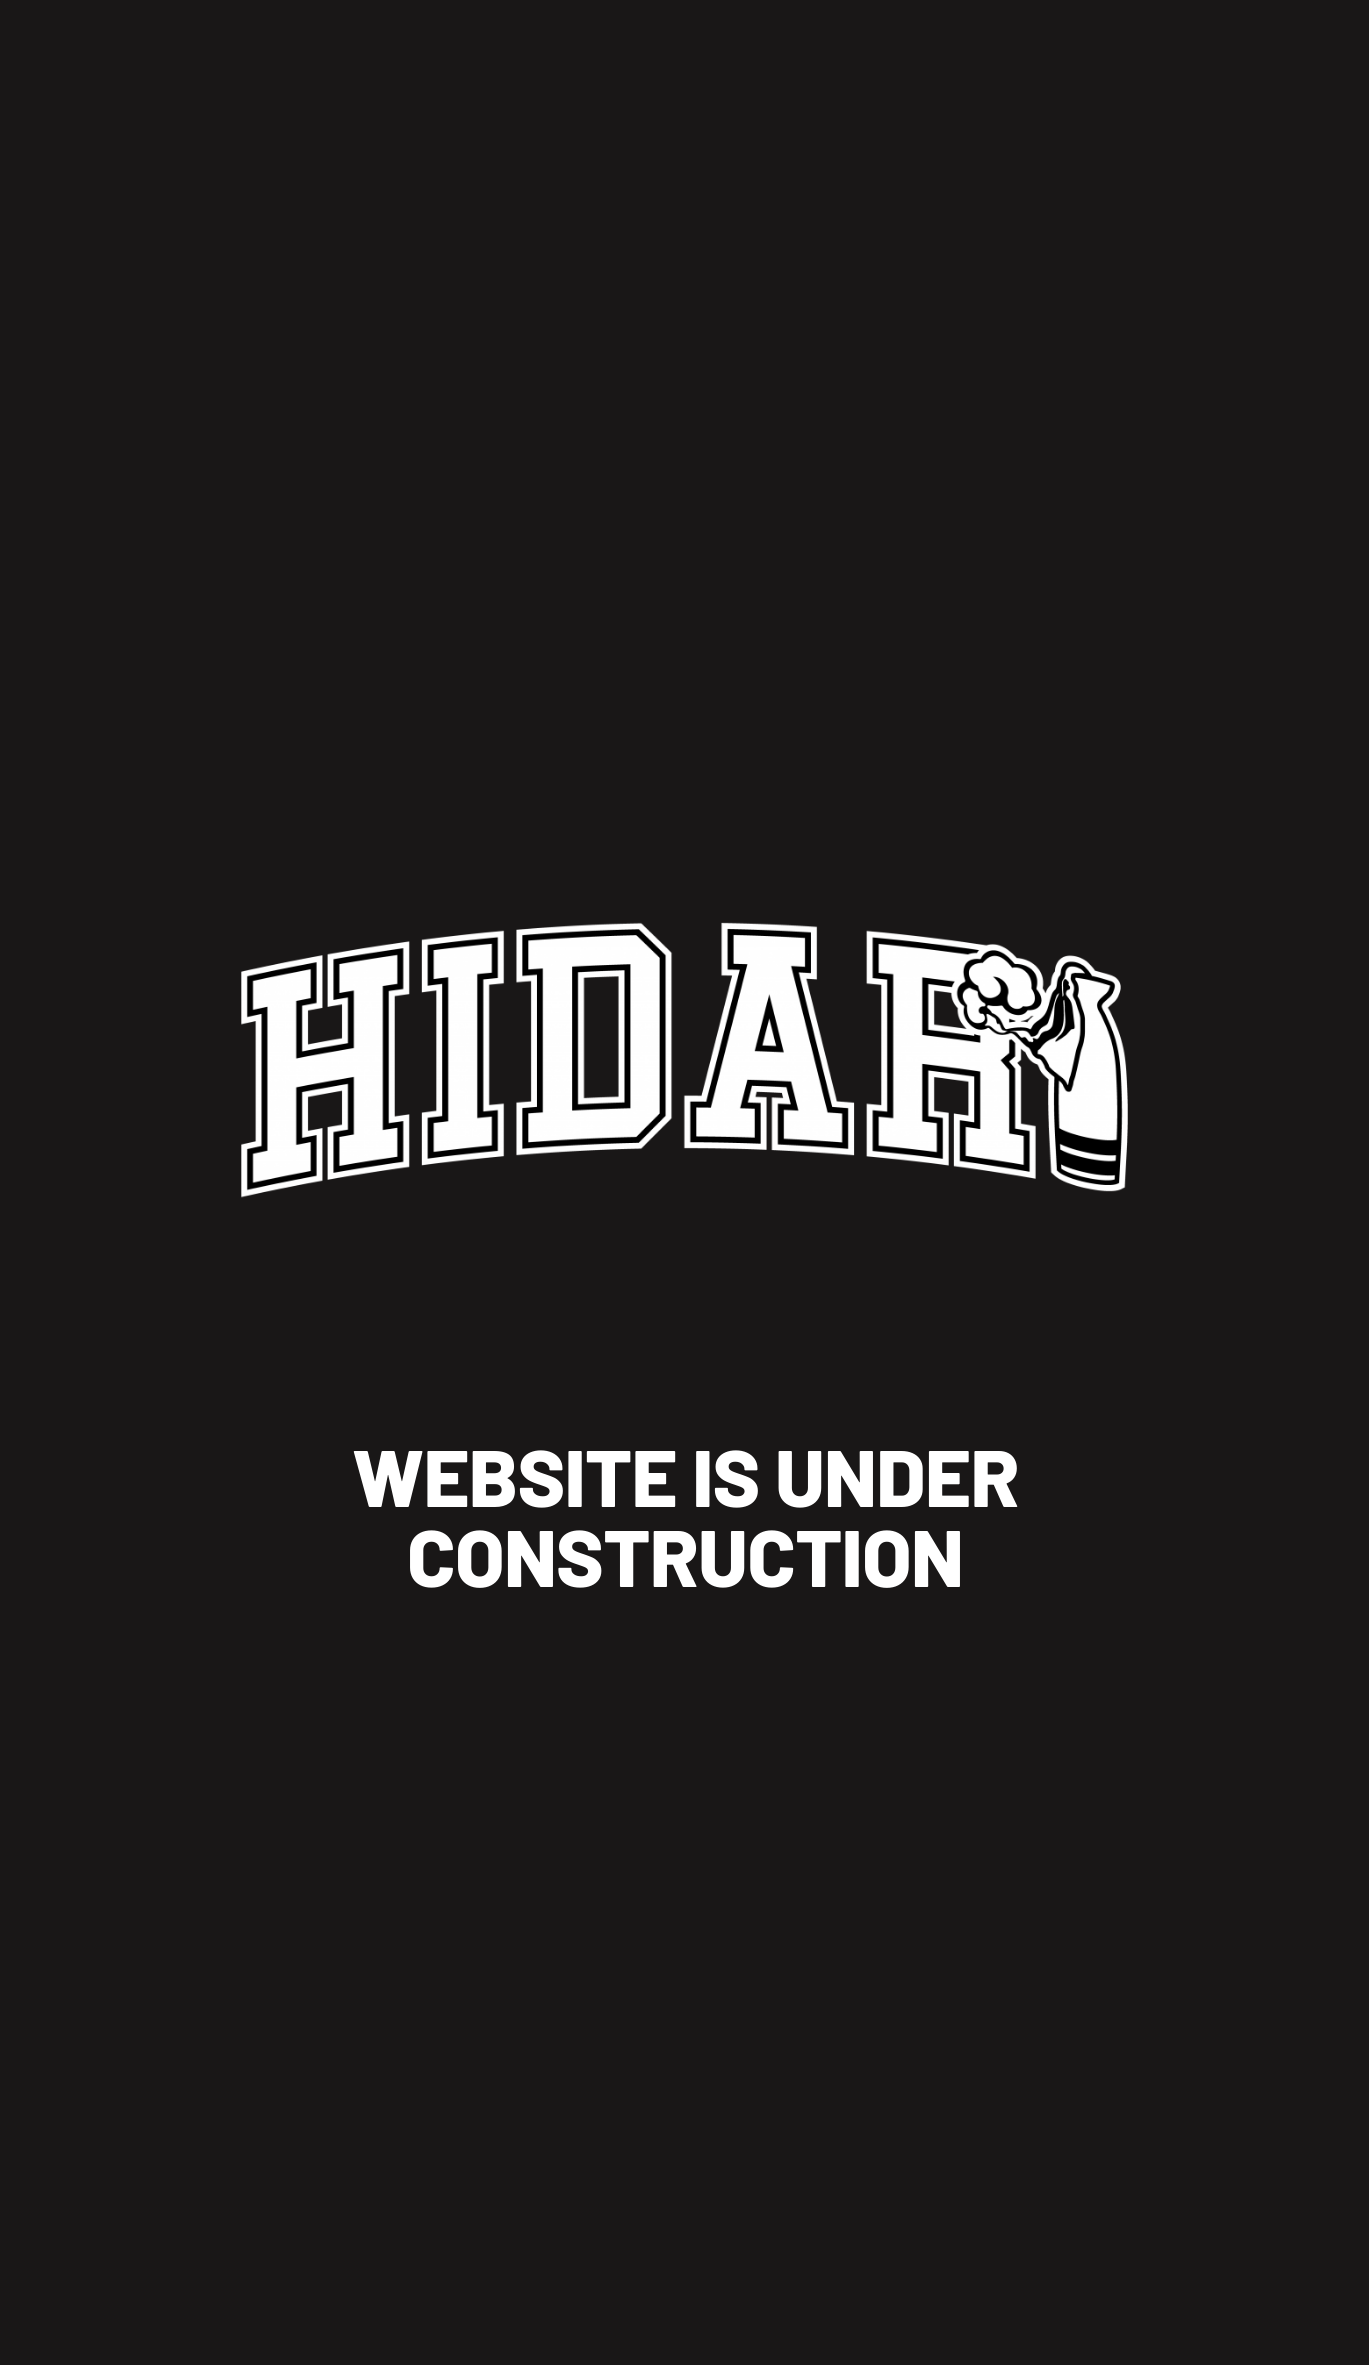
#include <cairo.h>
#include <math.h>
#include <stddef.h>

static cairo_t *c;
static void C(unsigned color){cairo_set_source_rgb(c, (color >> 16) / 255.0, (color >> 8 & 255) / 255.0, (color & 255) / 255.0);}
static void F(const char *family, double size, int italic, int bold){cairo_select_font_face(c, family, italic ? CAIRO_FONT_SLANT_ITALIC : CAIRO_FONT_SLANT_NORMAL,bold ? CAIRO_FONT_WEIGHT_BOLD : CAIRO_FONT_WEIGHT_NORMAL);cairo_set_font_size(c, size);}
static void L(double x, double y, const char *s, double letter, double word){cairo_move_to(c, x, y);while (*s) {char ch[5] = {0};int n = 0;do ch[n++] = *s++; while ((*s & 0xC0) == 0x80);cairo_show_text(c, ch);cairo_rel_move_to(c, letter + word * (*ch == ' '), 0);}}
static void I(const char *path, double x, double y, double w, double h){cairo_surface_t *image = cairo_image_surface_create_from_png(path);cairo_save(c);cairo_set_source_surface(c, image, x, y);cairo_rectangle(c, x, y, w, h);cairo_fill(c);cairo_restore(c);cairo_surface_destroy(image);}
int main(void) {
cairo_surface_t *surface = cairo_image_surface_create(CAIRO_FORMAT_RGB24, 1369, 2365);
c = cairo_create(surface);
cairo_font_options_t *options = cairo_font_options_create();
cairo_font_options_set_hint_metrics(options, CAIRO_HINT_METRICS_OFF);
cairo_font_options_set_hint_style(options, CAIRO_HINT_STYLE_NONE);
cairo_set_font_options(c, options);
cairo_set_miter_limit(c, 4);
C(0x191717);
cairo_paint(c);
I("1.png",241,922,887,276);
F("Barlow ExtraBold",80,0,0);
C(0xffffff);
L(352,1507,"WEBSITE IS UNDER",-.75,0);
L(407,1587,"CONSTRUCTION",-.75,0);
cairo_surface_write_to_png(surface, "o.png");
cairo_font_options_destroy(options);
cairo_destroy(c);
cairo_surface_destroy(surface);
return 0;
}
